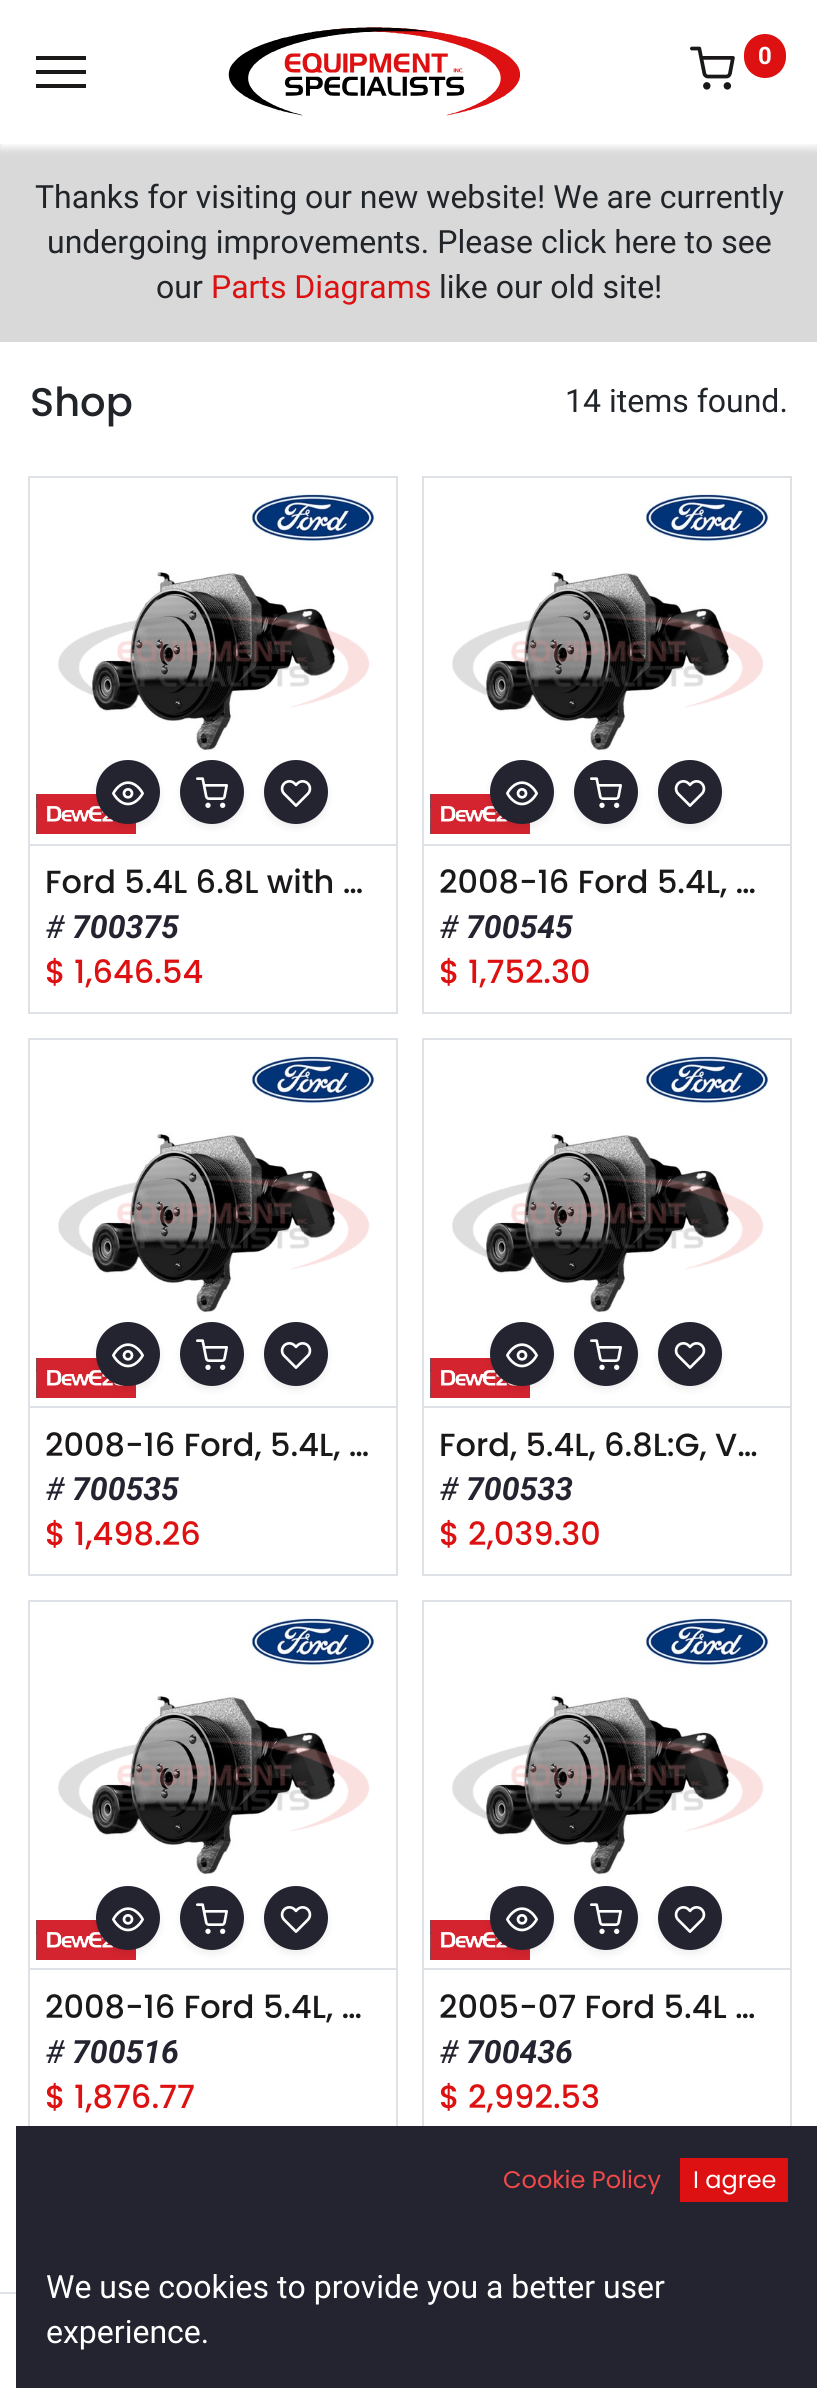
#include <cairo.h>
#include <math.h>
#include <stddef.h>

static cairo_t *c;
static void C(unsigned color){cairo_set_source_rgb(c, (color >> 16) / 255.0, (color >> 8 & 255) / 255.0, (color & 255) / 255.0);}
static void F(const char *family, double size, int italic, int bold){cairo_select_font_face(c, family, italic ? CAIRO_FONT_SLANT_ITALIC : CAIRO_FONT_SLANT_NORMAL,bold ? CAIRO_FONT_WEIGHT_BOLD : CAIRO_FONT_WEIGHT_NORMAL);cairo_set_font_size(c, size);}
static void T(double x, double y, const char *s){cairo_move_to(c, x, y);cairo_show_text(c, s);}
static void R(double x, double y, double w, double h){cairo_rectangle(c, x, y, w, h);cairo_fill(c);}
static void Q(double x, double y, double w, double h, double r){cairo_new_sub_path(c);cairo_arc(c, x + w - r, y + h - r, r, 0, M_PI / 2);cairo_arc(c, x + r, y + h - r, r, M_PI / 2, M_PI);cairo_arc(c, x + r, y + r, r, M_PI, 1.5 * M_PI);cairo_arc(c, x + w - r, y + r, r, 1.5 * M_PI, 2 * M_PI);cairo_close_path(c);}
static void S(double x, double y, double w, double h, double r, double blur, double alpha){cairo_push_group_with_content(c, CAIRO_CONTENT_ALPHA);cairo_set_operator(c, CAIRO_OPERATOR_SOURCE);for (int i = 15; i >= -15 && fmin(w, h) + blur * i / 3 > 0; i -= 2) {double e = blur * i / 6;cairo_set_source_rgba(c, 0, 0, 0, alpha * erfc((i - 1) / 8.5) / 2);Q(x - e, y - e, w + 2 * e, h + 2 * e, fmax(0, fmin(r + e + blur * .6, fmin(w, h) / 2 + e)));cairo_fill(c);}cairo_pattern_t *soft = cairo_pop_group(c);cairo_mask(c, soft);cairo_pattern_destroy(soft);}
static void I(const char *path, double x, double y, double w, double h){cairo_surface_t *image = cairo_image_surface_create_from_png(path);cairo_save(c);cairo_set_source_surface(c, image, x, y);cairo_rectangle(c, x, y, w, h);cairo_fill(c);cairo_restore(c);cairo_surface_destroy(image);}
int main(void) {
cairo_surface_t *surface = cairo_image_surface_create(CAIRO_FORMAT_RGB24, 817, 2403);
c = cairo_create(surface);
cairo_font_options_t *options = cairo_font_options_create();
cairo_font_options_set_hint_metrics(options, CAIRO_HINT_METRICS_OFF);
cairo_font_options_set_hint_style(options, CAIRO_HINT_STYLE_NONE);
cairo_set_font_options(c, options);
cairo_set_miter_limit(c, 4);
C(0xffffff);
cairo_paint(c);
C(0xd9d9d9);
R(0,144,817,198);
cairo_save(c);
cairo_rectangle(c,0,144,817,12);
cairo_clip(c);
C(0xffffff);
S(0,4,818,144,0,4,1);
cairo_restore(c);
C(0x1b1818);
R(36,56,50,4);
R(36,70,50,4);
R(36,84,50,4);
I("1.png",228,27,293,89);
I("2.png",690,46,45,44);
C(0xdd1111);
Q(744,34,42,44,21);
cairo_fill(c);
F("Roboto",24,0,1);
C(0xffffff);
T(758,64,"0");
F("Roboto",32,0,0);
C(0x212529);
T(35,208,"Thanks for visiting our new website! We are currently");
T(47,253,"undergoing improvements. Please click here to see");
T(156,298,"our");
C(0xdd1111);
T(211,298,"Parts Diagrams");
C(0x212529);
T(439,298,"like our old site!");
F("Poppins Medium",40,0,0);
T(30,416,"Shop");
F("Roboto",32,0,0);
T(565,412,"14 items found.");
cairo_rectangle(c,29,477,368,536);
C(0xdee2e6);
cairo_stroke(c);
I("3.png",58,492,318,259);
I("4.png",36,794,100,40);
R(30,844,366,2);
C(0x000000);
S(96,764,64,64,32,4,.07);
C(0x242431);
cairo_arc(c,128,792,31,0,2 * M_PI);
cairo_fill_preserve(c);
cairo_stroke(c);
I("5.png",112,781,32,25);
C(0x000000);
S(180,764,64,64,32,4,.07);
C(0x242431);
cairo_arc(c,212,792,31,0,2 * M_PI);
cairo_fill_preserve(c);
cairo_stroke(c);
I("6.png",196,777,32,31);
C(0x000000);
S(264,764,64,64,32,4,.07);
C(0x242431);
cairo_arc(c,296,792,31,0,2 * M_PI);
cairo_fill_preserve(c);
cairo_stroke(c);
I("7.png",280,780,32,27);
F("Poppins Medium",32,0,0);
C(0x1b1818);
T(45,893,"Ford 5.4L 6.8L with …");
F("Roboto",32,1,0);
C(0x242431);
T(45,938,"#");
F("Roboto",32,1,1);
T(72,938,"700375");
F("Poppins Medium",32,0,0);
C(0xdd1111);
T(45,983,"$ 1,646.54");
cairo_rectangle(c,423,477,368,536);
C(0xdee2e6);
cairo_stroke(c);
I("8.png",452,492,318,259);
I("4.png",430,794,100,40);
R(424,844,366,2);
C(0x000000);
S(490,764,64,64,32,4,.07);
C(0x242431);
cairo_arc(c,522,792,31,0,2 * M_PI);
cairo_fill_preserve(c);
cairo_stroke(c);
I("5.png",506,781,32,25);
C(0x000000);
S(574,764,64,64,32,4,.07);
C(0x242431);
cairo_arc(c,606,792,31,0,2 * M_PI);
cairo_fill_preserve(c);
cairo_stroke(c);
I("6.png",590,777,32,31);
C(0x000000);
S(658,764,64,64,32,4,.07);
C(0x242431);
cairo_arc(c,690,792,31,0,2 * M_PI);
cairo_fill_preserve(c);
cairo_stroke(c);
I("7.png",674,780,32,27);
C(0x1b1818);
T(439,893,"2008-16 Ford 5.4L, …");
F("Roboto",32,1,0);
C(0x242431);
T(439,938,"#");
F("Roboto",32,1,1);
T(466,938,"700545");
F("Poppins Medium",32,0,0);
C(0xdd1111);
T(439,983,"$ 1,752.30");
cairo_rectangle(c,29,1039,368,536);
C(0xdee2e6);
cairo_stroke(c);
I("3.png",58,1054,318,259);
I("4.png",36,1358,100,40);
R(30,1406,366,2);
C(0x000000);
S(96,1326,64,64,32,4,.07);
C(0x242431);
cairo_arc(c,128,1354,31,0,2 * M_PI);
cairo_fill_preserve(c);
cairo_stroke(c);
I("5.png",112,1343,32,25);
C(0x000000);
S(180,1326,64,64,32,4,.07);
C(0x242431);
cairo_arc(c,212,1354,31,0,2 * M_PI);
cairo_fill_preserve(c);
cairo_stroke(c);
I("6.png",196,1339,32,31);
C(0x000000);
S(264,1326,64,64,32,4,.07);
C(0x242431);
cairo_arc(c,296,1354,31,0,2 * M_PI);
cairo_fill_preserve(c);
cairo_stroke(c);
I("7.png",280,1342,32,27);
C(0x1b1818);
T(45,1456,"2008-16 Ford, 5.4L, …");
F("Roboto",32,1,0);
C(0x242431);
T(45,1500,"#");
F("Roboto",32,1,1);
T(72,1500,"700535");
F("Poppins Medium",32,0,0);
C(0xdd1111);
T(45,1545,"$ 1,498.26");
cairo_rectangle(c,423,1039,368,536);
C(0xdee2e6);
cairo_stroke(c);
I("8.png",452,1054,318,259);
I("4.png",430,1358,100,40);
R(424,1406,366,2);
C(0x000000);
S(490,1326,64,64,32,4,.07);
C(0x242431);
cairo_arc(c,522,1354,31,0,2 * M_PI);
cairo_fill_preserve(c);
cairo_stroke(c);
I("5.png",506,1343,32,25);
C(0x000000);
S(574,1326,64,64,32,4,.07);
C(0x242431);
cairo_arc(c,606,1354,31,0,2 * M_PI);
cairo_fill_preserve(c);
cairo_stroke(c);
I("6.png",590,1339,32,31);
C(0x000000);
S(658,1326,64,64,32,4,.07);
C(0x242431);
cairo_arc(c,690,1354,31,0,2 * M_PI);
cairo_fill_preserve(c);
cairo_stroke(c);
I("7.png",674,1342,32,27);
C(0x1b1818);
T(439,1456,"Ford, 5.4L, 6.8L:G, V…");
F("Roboto",32,1,0);
C(0x242431);
T(439,1500,"#");
F("Roboto",32,1,1);
T(466,1500,"700533");
F("Poppins Medium",32,0,0);
C(0xdd1111);
T(439,1545,"$ 2,039.30");
cairo_rectangle(c,29,1601,368,536);
C(0xdee2e6);
cairo_stroke(c);
I("3.png",58,1616,318,259);
I("4.png",36,1920,100,40);
R(30,1968,366,2);
C(0x000000);
S(96,1890,64,64,32,4,.07);
C(0x242431);
cairo_arc(c,128,1918,31,0,2 * M_PI);
cairo_fill_preserve(c);
cairo_stroke(c);
I("5.png",112,1907,32,25);
C(0x000000);
S(180,1890,64,64,32,4,.07);
C(0x242431);
cairo_arc(c,212,1918,31,0,2 * M_PI);
cairo_fill_preserve(c);
cairo_stroke(c);
I("6.png",196,1903,32,31);
C(0x000000);
S(264,1890,64,64,32,4,.07);
C(0x242431);
cairo_arc(c,296,1918,31,0,2 * M_PI);
cairo_fill_preserve(c);
cairo_stroke(c);
I("7.png",280,1906,32,27);
C(0x1b1818);
T(45,2018,"2008-16 Ford 5.4L, …");
F("Roboto",32,1,0);
C(0x242431);
T(45,2063,"#");
F("Roboto",32,1,1);
T(72,2063,"700516");
F("Poppins Medium",32,0,0);
C(0xdd1111);
T(45,2108,"$ 1,876.77");
cairo_rectangle(c,423,1601,368,536);
C(0xdee2e6);
cairo_stroke(c);
I("8.png",452,1616,318,259);
I("4.png",430,1920,100,40);
R(424,1968,366,2);
C(0x000000);
S(490,1890,64,64,32,4,.07);
C(0x242431);
cairo_arc(c,522,1918,31,0,2 * M_PI);
cairo_fill_preserve(c);
cairo_stroke(c);
I("5.png",506,1907,32,25);
C(0x000000);
S(574,1890,64,64,32,4,.07);
C(0x242431);
cairo_arc(c,606,1918,31,0,2 * M_PI);
cairo_fill_preserve(c);
cairo_stroke(c);
I("6.png",590,1903,32,31);
C(0x000000);
S(658,1890,64,64,32,4,.07);
C(0x242431);
cairo_arc(c,690,1918,31,0,2 * M_PI);
cairo_fill_preserve(c);
cairo_stroke(c);
I("7.png",674,1906,32,27);
C(0x1b1818);
T(439,2018,"2005-07 Ford 5.4L …");
F("Roboto",32,1,0);
C(0x242431);
T(439,2063,"#");
F("Roboto",32,1,1);
T(466,2063,"700436");
F("Poppins Medium",32,0,0);
C(0xdd1111);
T(439,2108,"$ 2,992.53");
C(0xdee2e6);
R(0,2292,16,2);
C(0x242431);
R(16,2126,801,262);
F("Poppins",24,0,0);
C(0xf14949);
T(503,2188,"Cookie Policy");
C(0xdd1111);
R(680,2158,108,44);
C(0xffffff);
T(693,2188,"I agree");
F("Roboto",32,0,0);
T(46,2298,"We use cookies to provide you a better user");
T(46,2343,"experience.");
cairo_surface_write_to_png(surface, "o.png");
cairo_font_options_destroy(options);
cairo_destroy(c);
cairo_surface_destroy(surface);
return 0;
}
